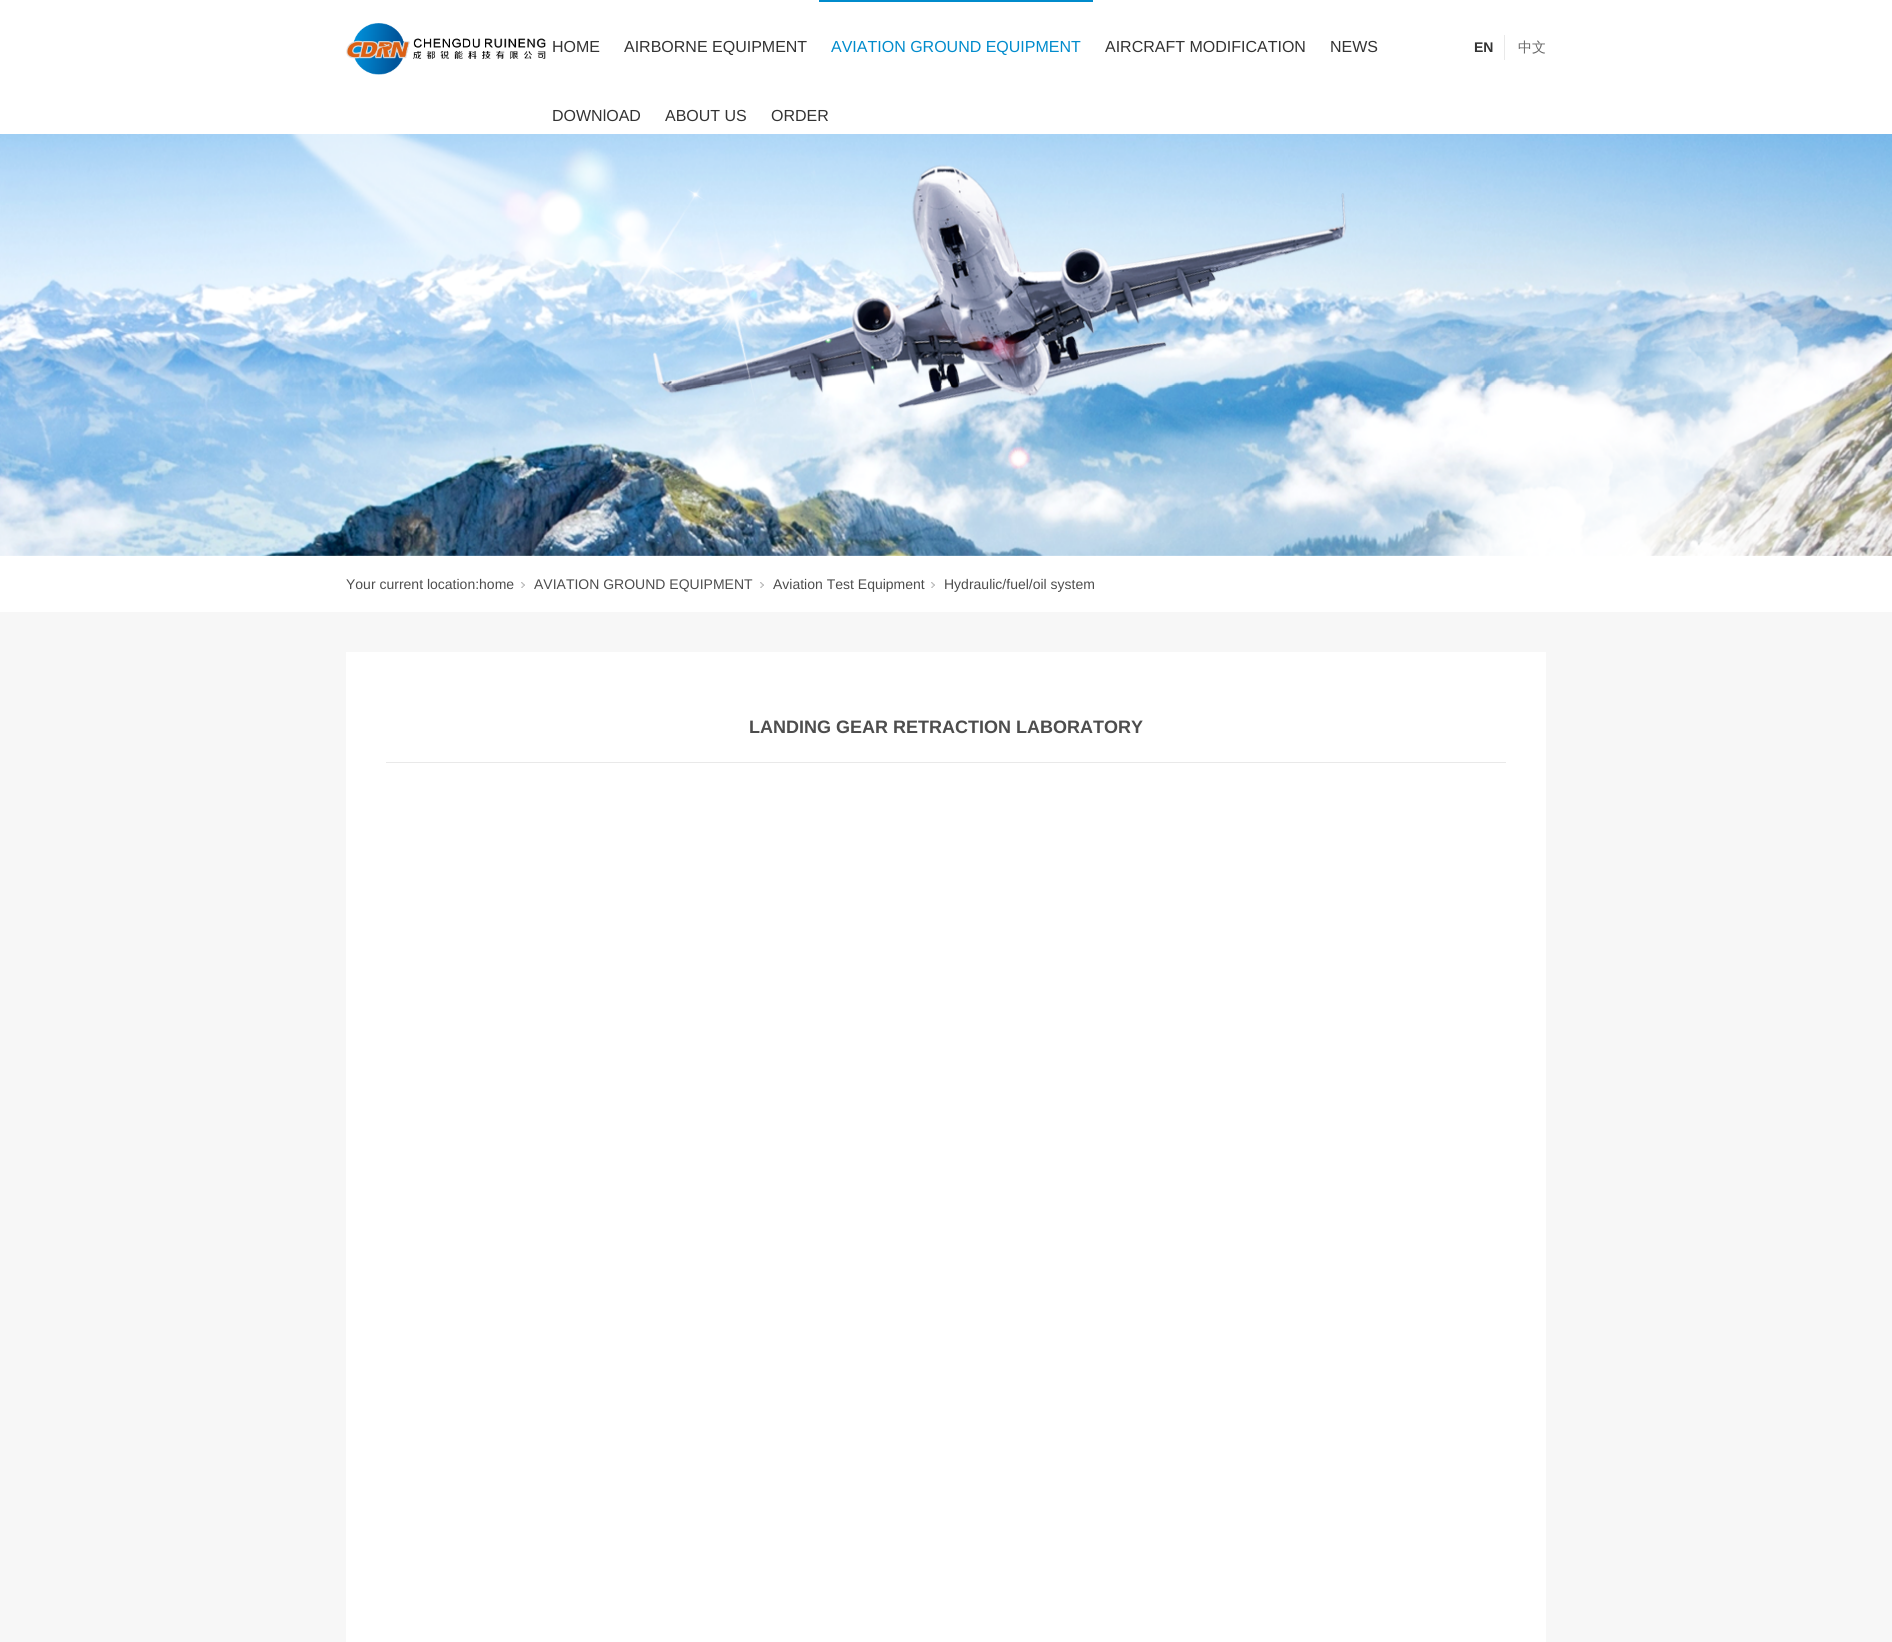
#include <cairo.h>
#include <math.h>
#include <stddef.h>

static cairo_t *c;
static void C(unsigned color){cairo_set_source_rgb(c, (color >> 16) / 255.0, (color >> 8 & 255) / 255.0, (color & 255) / 255.0);}
static void F(const char *family, double size, int italic, int bold){cairo_select_font_face(c, family, italic ? CAIRO_FONT_SLANT_ITALIC : CAIRO_FONT_SLANT_NORMAL,bold ? CAIRO_FONT_WEIGHT_BOLD : CAIRO_FONT_WEIGHT_NORMAL);cairo_set_font_size(c, size);}
static void T(double x, double y, const char *s){cairo_move_to(c, x, y);cairo_show_text(c, s);}
static void R(double x, double y, double w, double h){cairo_rectangle(c, x, y, w, h);cairo_fill(c);}
static void I(const char *path, double x, double y, double w, double h){cairo_surface_t *image = cairo_image_surface_create_from_png(path);cairo_save(c);cairo_set_source_surface(c, image, x, y);cairo_rectangle(c, x, y, w, h);cairo_fill(c);cairo_restore(c);cairo_surface_destroy(image);}
int main(void) {
cairo_surface_t *surface = cairo_image_surface_create(CAIRO_FORMAT_RGB24, 1892, 1642);
c = cairo_create(surface);
cairo_font_options_t *options = cairo_font_options_create();
cairo_font_options_set_hint_metrics(options, CAIRO_HINT_METRICS_OFF);
cairo_font_options_set_hint_style(options, CAIRO_HINT_STYLE_NONE);
cairo_set_font_options(c, options);
cairo_set_miter_limit(c, 4);
C(0xffffff);
cairo_paint(c);
I("1.png",346,23,200,52);
F("Liberation Sans",16,0,0);
C(0x333333);
T(552,52,"HOME");
T(624,52,"AIRBORNE EQUIPMENT");
C(0x008bcc);
R(819,0,274,2);
T(831,52,"AVIATION GROUND EQUIPMENT");
C(0x333333);
T(1105,52,"AIRCRAFT MODIFICATION");
T(1330,52,"NEWS");
T(552,121,"DOWNlOAD");
T(665,121,"ABOUT US");
T(771,121,"ORDER");
C(0xe9e9e9);
R(1504,35,1,25);
F("Liberation Sans",14,0,1);
C(0x333333);
T(1474,52,"EN");
F("WenQuanYi Zen Hei Medium",14,0,0);
C(0x666666);
T(1518,52,"中文");
I("2.png",0,134,1892,422);
F("Liberation Sans",14,0,0);
C(0x4d4d4d);
T(346,589,"Your current location:home");
I("3.png",521,582,4,6);
T(534,589,"AVIATION GROUND EQUIPMENT");
I("3.png",760,582,4,6);
T(773,589,"Aviation Test Equipment");
I("3.png",931,582,4,6);
T(944,589,"Hydraulic/fuel/oil system");
C(0xf7f7f7);
R(0,612,1892,1030);
C(0xffffff);
R(346,652,1200,990);
C(0xe9e9e9);
R(386,762,1120,1);
F("Liberation Sans",18,0,1);
C(0x4d4d4d);
T(749,733,"LANDING GEAR RETRACTION LABORATORY");
cairo_surface_write_to_png(surface, "o.png");
cairo_font_options_destroy(options);
cairo_destroy(c);
cairo_surface_destroy(surface);
return 0;
}
